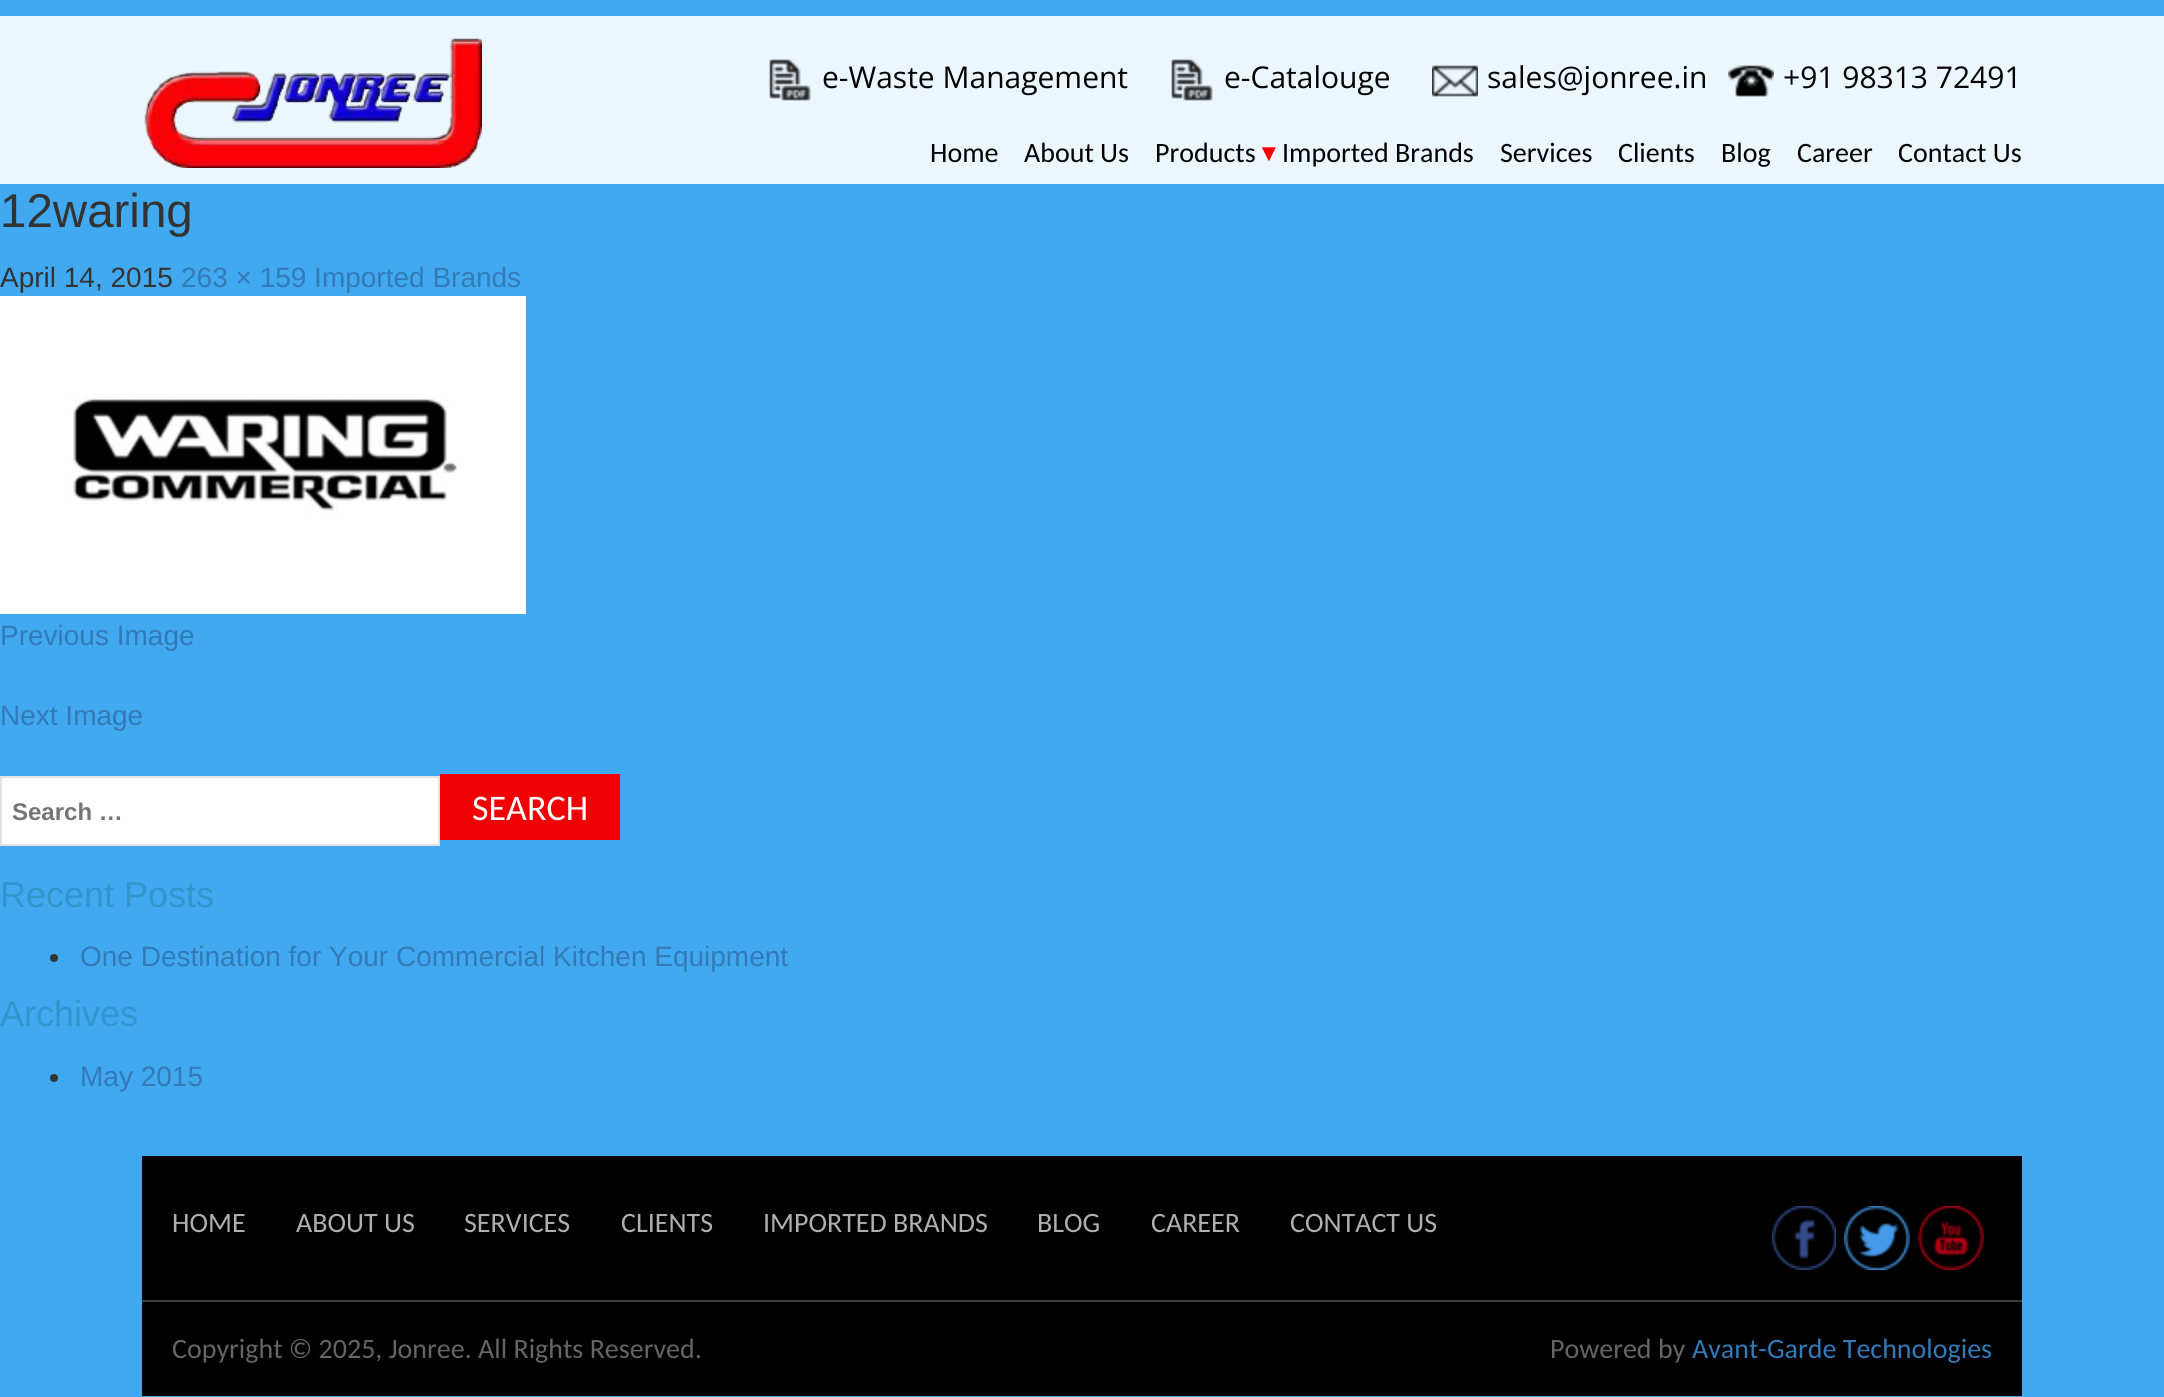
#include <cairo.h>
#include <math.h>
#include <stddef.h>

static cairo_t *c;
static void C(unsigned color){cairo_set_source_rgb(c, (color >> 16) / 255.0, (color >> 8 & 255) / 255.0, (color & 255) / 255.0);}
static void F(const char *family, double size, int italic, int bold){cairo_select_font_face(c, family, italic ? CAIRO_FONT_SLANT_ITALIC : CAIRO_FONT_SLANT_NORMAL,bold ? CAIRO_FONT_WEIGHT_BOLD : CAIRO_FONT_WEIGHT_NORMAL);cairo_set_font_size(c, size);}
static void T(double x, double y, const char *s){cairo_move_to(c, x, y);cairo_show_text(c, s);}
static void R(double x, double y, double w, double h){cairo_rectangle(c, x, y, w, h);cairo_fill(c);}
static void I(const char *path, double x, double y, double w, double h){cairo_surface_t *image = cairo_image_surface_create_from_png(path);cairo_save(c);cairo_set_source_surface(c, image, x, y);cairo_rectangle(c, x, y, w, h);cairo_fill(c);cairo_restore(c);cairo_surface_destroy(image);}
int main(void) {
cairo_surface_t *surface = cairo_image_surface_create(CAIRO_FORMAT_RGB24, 2164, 1397);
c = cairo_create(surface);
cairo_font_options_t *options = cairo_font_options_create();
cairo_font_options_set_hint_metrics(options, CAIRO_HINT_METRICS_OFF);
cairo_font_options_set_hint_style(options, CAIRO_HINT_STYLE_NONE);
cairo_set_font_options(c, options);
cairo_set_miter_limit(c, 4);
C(0x40a9ef);
cairo_paint(c);
C(0xecf6fd);
R(0,16,2164,168);
I("1.png",144,38,338,130);
I("2.png",769,59,42,42);
F("Open Sans",30,0,0);
C(0x000000);
T(822,88,"e-Waste Management");
I("2.png",1171,59,42,42);
T(1224,88,"e-Catalouge");
I("3.png",1432,65,46,32);
T(1487,88,"sales@jonree.in");
I("4.png",1728,65,46,32);
T(1783,88,"+91 98313 72491");
F("Carlito",28,0,0);
T(930,162,"Home");
T(1024,162,"About Us");
T(1155,162,"Products");
F("Liberation Sans",24,1,0);
C(0xff0000);
T(1257,161,"▼");
F("Carlito",28,0,0);
C(0x000000);
T(1282,162,"Imported Brands");
T(1500,162,"Services");
T(1618,162,"Clients");
T(1721,162,"Blog");
T(1797,162,"Career");
T(1898,162,"Contact Us");
F("Liberation Sans",47.5,0,0);
C(0x333333);
T(0,227,"12waring");
F("Liberation Sans",28,0,0);
T(0,287,"April 14, 2015");
C(0x337ab7);
T(181,287,"263 × 159 Imported Brands");
I("5.png",0,296,526,318);
T(0,645,"Previous Image");
T(0,725,"Next Image");
C(0xffffff);
cairo_rectangle(c,1,777,438,68);
cairo_fill_preserve(c);
C(0xe6e1e1);
cairo_stroke(c);
F("Liberation Sans",24,0,1);
C(0x757575);
T(12,820,"Search …");
C(0xf00000);
R(440,774,180,66);
F("Carlito",36,0,0);
C(0xffffff);
T(472,820,"SEARCH");
F("Liberation Sans",36,0,0);
C(0x3296cc);
T(0,907,"Recent Posts");
C(0x333333);
cairo_new_path(c);
cairo_arc(c,54,958,4,0,2 * M_PI);
cairo_fill(c);
F("Liberation Sans",28,0,0);
C(0x337ab7);
T(80,966,"One Destination for Your Commercial Kitchen Equipment");
F("Liberation Sans",36,0,0);
C(0x3296cc);
T(0,1026,"Archives");
C(0x333333);
cairo_new_path(c);
cairo_arc(c,54,1078,4,0,2 * M_PI);
cairo_fill(c);
F("Liberation Sans",28,0,0);
C(0x337ab7);
T(80,1086,"May 2015");
C(0x000000);
R(142,1156,1880,240);
C(0x3e3e3e);
R(142,1300,1880,2);
F("Carlito",28,0,0);
C(0xafafaf);
T(172,1232,"HOME");
T(296,1232,"ABOUT US");
T(464,1232,"SERVICES");
T(621,1232,"CLIENTS");
T(763,1232,"IMPORTED BRANDS");
T(1037,1232,"BLOG");
T(1151,1232,"CAREER");
T(1290,1232,"CONTACT US");
I("6.png",1772,1206,64,64);
I("7.png",1844,1206,66,64);
I("8.png",1918,1206,66,64);
C(0x656565);
T(172,1358,"Copyright © 2025, Jonree. All Rights Reserved.");
T(1550,1358,"Powered by");
C(0x337ab7);
T(1692,1358,"Avant-Garde Technologies");
cairo_surface_write_to_png(surface, "o.png");
cairo_font_options_destroy(options);
cairo_destroy(c);
cairo_surface_destroy(surface);
return 0;
}
